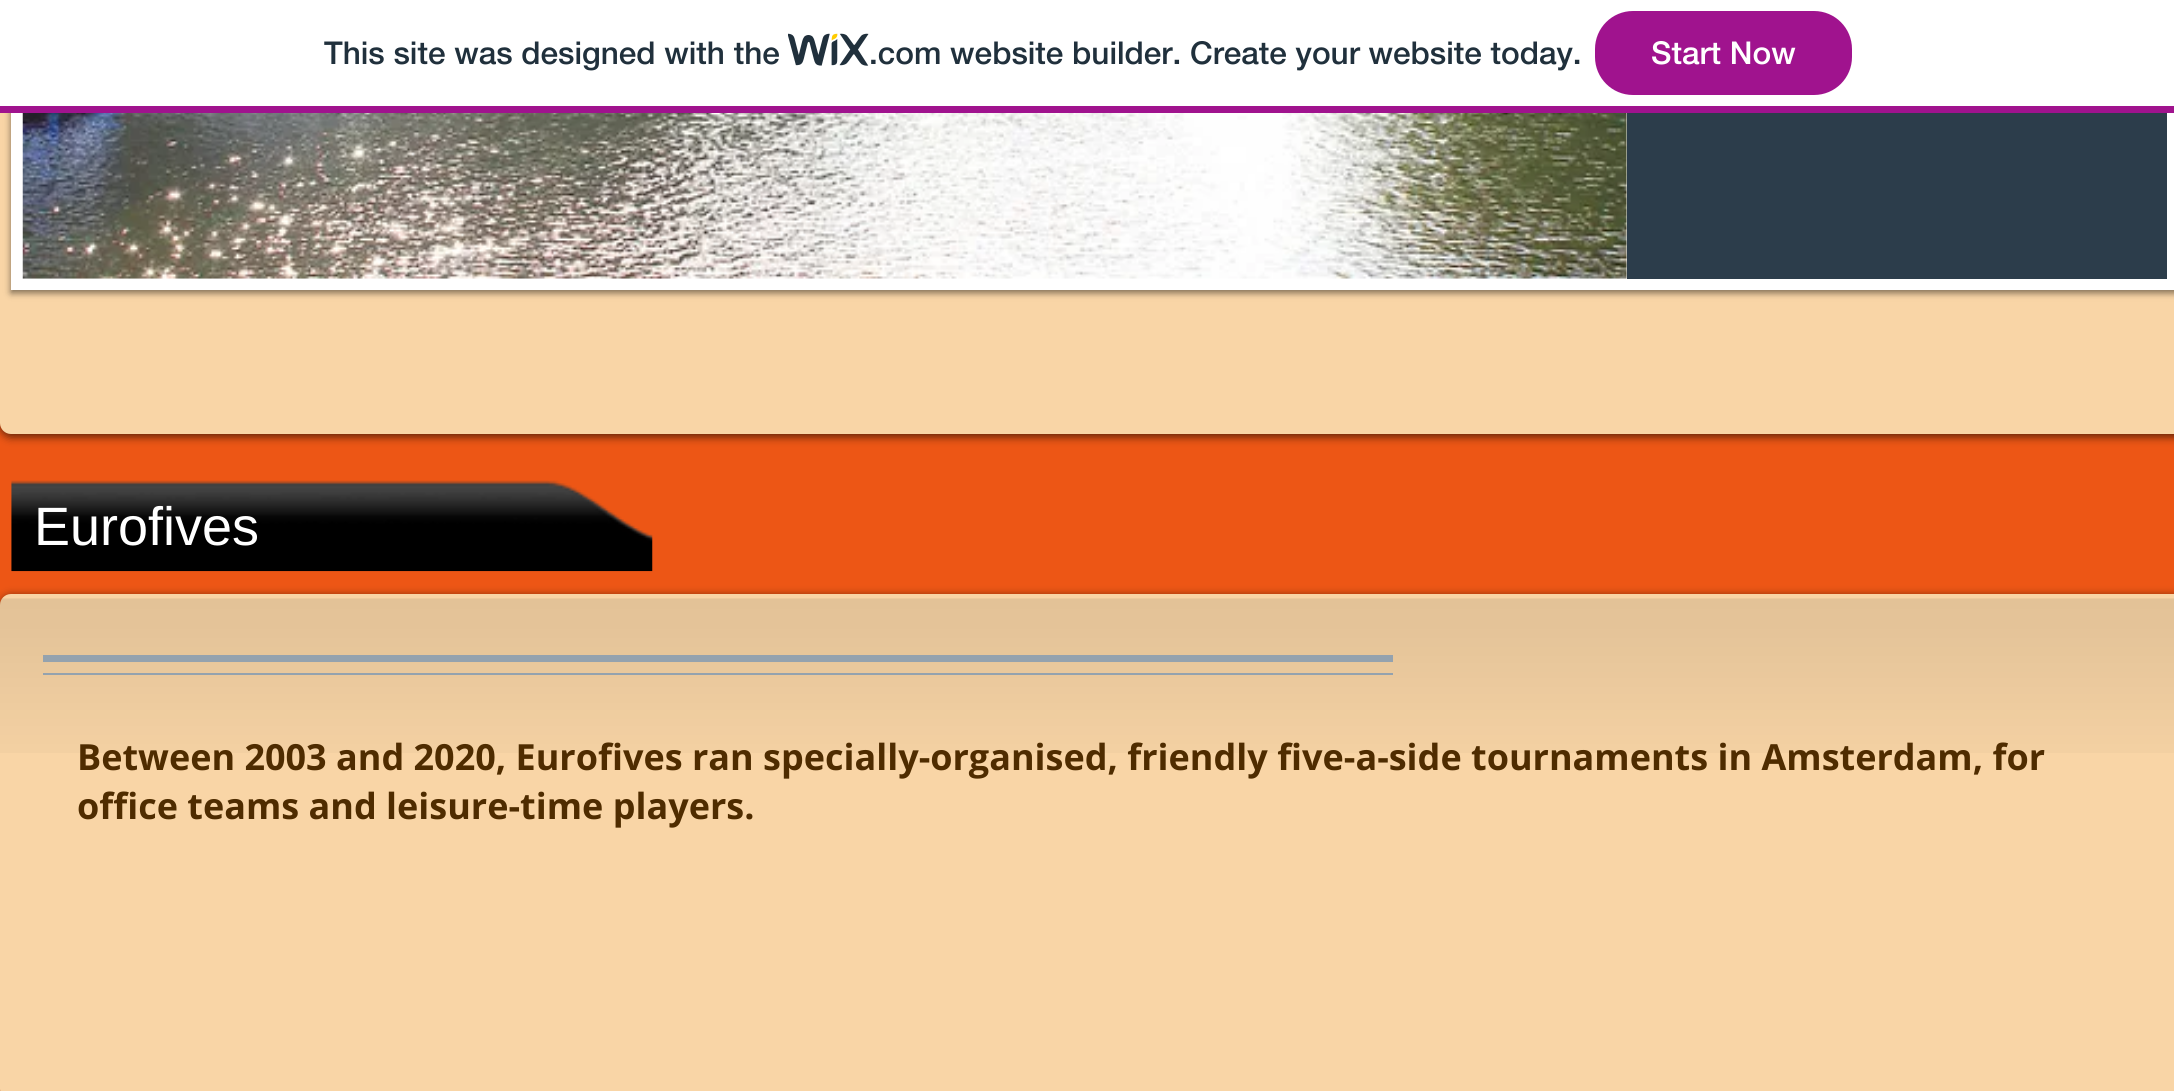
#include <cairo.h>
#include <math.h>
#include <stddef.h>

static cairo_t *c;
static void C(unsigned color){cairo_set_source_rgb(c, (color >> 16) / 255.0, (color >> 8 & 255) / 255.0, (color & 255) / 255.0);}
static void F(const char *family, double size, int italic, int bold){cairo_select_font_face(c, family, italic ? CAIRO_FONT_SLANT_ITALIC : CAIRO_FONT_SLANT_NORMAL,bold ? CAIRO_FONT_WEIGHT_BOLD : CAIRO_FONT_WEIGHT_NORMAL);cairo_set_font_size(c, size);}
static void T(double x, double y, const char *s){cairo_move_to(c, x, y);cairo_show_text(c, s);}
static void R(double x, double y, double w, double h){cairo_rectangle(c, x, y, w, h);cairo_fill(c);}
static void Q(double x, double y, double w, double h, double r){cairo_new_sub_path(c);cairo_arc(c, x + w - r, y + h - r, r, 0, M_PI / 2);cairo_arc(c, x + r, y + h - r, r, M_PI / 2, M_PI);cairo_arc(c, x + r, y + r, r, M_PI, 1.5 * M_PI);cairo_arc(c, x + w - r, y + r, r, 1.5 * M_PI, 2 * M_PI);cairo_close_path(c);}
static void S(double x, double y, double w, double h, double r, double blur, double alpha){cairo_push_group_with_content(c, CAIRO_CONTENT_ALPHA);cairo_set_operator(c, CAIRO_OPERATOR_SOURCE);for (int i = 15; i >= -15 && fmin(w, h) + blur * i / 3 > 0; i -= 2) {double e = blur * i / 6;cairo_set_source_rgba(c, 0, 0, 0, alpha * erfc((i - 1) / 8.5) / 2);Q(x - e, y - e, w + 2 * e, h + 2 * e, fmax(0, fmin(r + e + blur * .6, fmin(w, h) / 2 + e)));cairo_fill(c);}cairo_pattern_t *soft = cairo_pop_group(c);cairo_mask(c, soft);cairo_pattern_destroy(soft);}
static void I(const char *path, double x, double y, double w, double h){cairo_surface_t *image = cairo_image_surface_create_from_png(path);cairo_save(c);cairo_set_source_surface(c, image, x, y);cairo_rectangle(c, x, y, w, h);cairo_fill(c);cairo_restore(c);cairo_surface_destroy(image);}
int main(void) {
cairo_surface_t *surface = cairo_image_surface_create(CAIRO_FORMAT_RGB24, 2174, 1091);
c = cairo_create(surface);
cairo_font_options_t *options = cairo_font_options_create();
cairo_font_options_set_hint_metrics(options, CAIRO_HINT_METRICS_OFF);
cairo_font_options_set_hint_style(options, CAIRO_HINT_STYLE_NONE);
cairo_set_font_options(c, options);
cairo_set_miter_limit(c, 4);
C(0xed5615);
cairo_paint(c);
C(0x000000);
S(0,-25,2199,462,11,4.5,.6);
C(0xf9d5a6);
Q(0,-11,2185,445,11);
cairo_fill(c);
C(0x000000);
S(11,-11,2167,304,0,3.5,.5);
C(0xffffff);
R(0,0,2174,106);
C(0xa0138e);
R(0,106,2174,7);
F("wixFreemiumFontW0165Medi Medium",31.5,0,0);
C(0x20303c);
T(324,64,"This site was designed with the");
I("1.png",788,33,81,33);
T(869,64,".com website builder. Create your website today.");
C(0xa0138e);
Q(1596,12,255,82,37);
cairo_fill_preserve(c);
cairo_stroke(c);
C(0xffffff);
T(1651,64,"Start Now");
R(11,113,2163,177);
I("2.png",22,113,1605,166);
C(0x2c3d4b);
R(1627,113,540,166);
I("3.png",11,480,642,92);
F("Liberation Sans",54,0,0);
C(0xffffff);
T(34,545,"Eurofives");
C(0x000000);
S(0,596,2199,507,11,4.5,.6);
C(0xf9d5a6);
Q(0,594,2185,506,11);
cairo_fill(c);
I("4.png",0,598,2174,155);
C(0x94a2ae);
R(43,655,1350,7);
R(43,673,1350,2);
F("Open Sans",36,0,1);
C(0x4f2c00);
T(77,770,"Between 2003 and 2020, Eurofives ran specially-organised, friendly five-a-side tournaments in Amsterdam, for");
T(77,819,"office teams and leisure-time players.");
cairo_surface_write_to_png(surface, "o.png");
cairo_font_options_destroy(options);
cairo_destroy(c);
cairo_surface_destroy(surface);
return 0;
}
